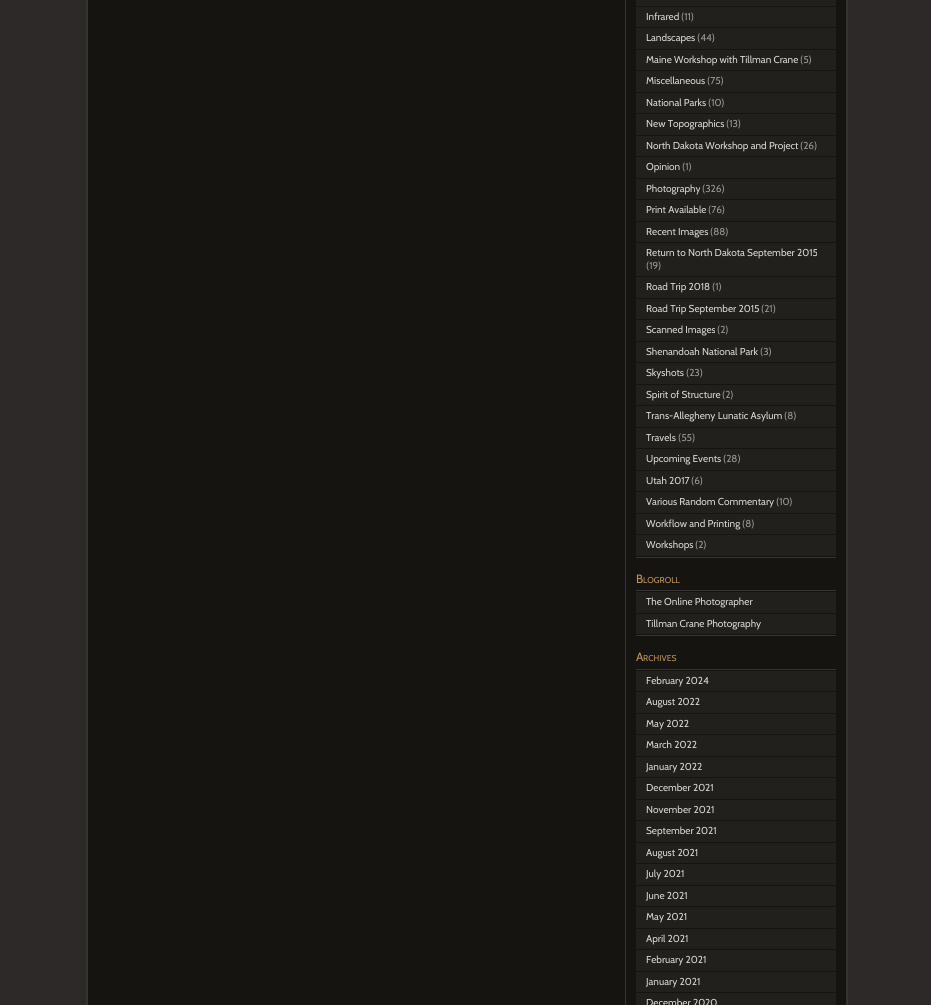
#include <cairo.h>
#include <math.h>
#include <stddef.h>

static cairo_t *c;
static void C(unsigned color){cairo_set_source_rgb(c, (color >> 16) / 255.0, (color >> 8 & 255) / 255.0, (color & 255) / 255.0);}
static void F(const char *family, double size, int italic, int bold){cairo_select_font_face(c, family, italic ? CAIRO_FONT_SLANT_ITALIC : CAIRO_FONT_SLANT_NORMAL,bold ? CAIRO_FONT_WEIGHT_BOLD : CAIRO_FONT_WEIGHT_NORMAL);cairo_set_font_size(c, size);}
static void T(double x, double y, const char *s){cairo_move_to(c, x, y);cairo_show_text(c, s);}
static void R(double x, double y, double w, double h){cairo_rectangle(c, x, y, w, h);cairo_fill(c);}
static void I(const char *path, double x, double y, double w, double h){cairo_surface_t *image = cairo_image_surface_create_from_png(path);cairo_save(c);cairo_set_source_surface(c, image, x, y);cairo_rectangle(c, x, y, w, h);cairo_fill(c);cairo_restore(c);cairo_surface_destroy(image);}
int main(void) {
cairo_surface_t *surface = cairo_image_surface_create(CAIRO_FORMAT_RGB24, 931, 1005);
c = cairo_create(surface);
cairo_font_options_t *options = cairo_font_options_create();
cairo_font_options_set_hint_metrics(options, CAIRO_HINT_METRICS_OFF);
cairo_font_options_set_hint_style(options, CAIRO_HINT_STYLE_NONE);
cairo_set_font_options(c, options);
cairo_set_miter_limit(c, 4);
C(0x2e2929);
cairo_paint(c);
I("1.png",87,0,760,1005);
C(0x363430);
R(847,0,1,1005);
R(86,0,1,1005);
R(636,557,200,1);
C(0x22201d);
R(636,0,200,6);
R(636,7,200,20);
F("Cabin",10,0,0);
C(0xd8d7d3);
T(646,20,"Infrared");
C(0x999999);
T(681,20,"(11)");
C(0x22201d);
R(636,28,200,21);
C(0xd8d7d3);
T(646,41,"Landscapes");
C(0x999999);
T(697,41,"(44)");
C(0x22201d);
R(636,50,200,20);
C(0xd8d7d3);
T(646,63,"Maine Workshop with Tillman Crane");
C(0x999999);
T(800,63,"(5)");
C(0x22201d);
R(636,71,200,21);
C(0xd8d7d3);
T(646,84,"Miscellaneous");
C(0x999999);
T(707,84,"(75)");
C(0x22201d);
R(636,93,200,20);
C(0xd8d7d3);
T(646,106,"National Parks");
C(0x999999);
T(708,106,"(10)");
C(0x22201d);
R(636,114,200,21);
C(0xd8d7d3);
T(646,127,"New Topographics");
C(0x999999);
T(726,127,"(13)");
C(0x22201d);
R(636,136,200,20);
C(0xd8d7d3);
T(646,149,"North Dakota Workshop and Project");
C(0x999999);
T(800,149,"(26)");
C(0x22201d);
R(636,157,200,21);
C(0xd8d7d3);
T(646,170,"Opinion");
C(0x999999);
T(682,170,"(1)");
C(0x22201d);
R(636,179,200,20);
C(0xd8d7d3);
T(646,192,"Photography");
C(0x999999);
T(702,192,"(326)");
C(0x22201d);
R(636,200,200,21);
C(0xd8d7d3);
T(646,213,"Print Available");
C(0x999999);
T(708,213,"(76)");
C(0x22201d);
R(636,222,200,20);
C(0xd8d7d3);
T(646,235,"Recent Images");
C(0x999999);
T(710,235,"(88)");
C(0x22201d);
R(636,243,200,33);
C(0xd8d7d3);
T(646,256,"Return to North Dakota September 2015");
C(0x999999);
T(646,269,"(19)");
C(0x22201d);
R(636,277,200,21);
C(0xd8d7d3);
T(646,290,"Road Trip 2018");
C(0x999999);
T(712,290,"(1)");
C(0x22201d);
R(636,299,200,20);
C(0xd8d7d3);
T(646,312,"Road Trip September 2015");
C(0x999999);
T(761,312,"(21)");
C(0x22201d);
R(636,320,200,21);
C(0xd8d7d3);
T(646,333,"Scanned Images");
C(0x999999);
T(717,333,"(2)");
C(0x22201d);
R(636,342,200,20);
C(0xd8d7d3);
T(646,355,"Shenandoah National Park");
C(0x999999);
T(760,355,"(3)");
C(0x22201d);
R(636,363,200,21);
C(0xd8d7d3);
T(646,376,"Skyshots");
C(0x999999);
T(686,376,"(23)");
C(0x22201d);
R(636,385,200,20);
C(0xd8d7d3);
T(646,398,"Spirit of Structure");
C(0x999999);
T(722,398,"(2)");
C(0x22201d);
R(636,406,200,21);
C(0xd8d7d3);
T(646,419,"Trans-Allegheny Lunatic Asylum");
C(0x999999);
T(784,419,"(8)");
C(0x22201d);
R(636,428,200,20);
C(0xd8d7d3);
T(646,441,"Travels");
C(0x999999);
T(678,441,"(55)");
C(0x22201d);
R(636,449,200,21);
C(0xd8d7d3);
T(646,462,"Upcoming Events");
C(0x999999);
T(723,462,"(28)");
C(0x22201d);
R(636,471,200,20);
C(0xd8d7d3);
T(646,484,"Utah 2017");
C(0x999999);
T(691,484,"(6)");
C(0x22201d);
R(636,492,200,21);
C(0xd8d7d3);
T(646,505,"Various Random Commentary");
C(0x999999);
T(776,505,"(10)");
C(0x22201d);
R(636,514,200,20);
C(0xd8d7d3);
T(646,527,"Workflow and Printing");
C(0x999999);
T(742,527,"(8)");
C(0x22201d);
R(636,535,200,21);
C(0xd8d7d3);
T(646,548,"Workshops");
C(0x999999);
T(695,548,"(2)");
F("Cabin",12,0,0);
C(0xbd934f);
T(636,583,"B");
F("Cabin",8.5,0,0);
T(643,583,"LOGROLL");
C(0x363430);
R(636,590,200,1);
R(636,635,200,1);
C(0x22201d);
R(636,592,200,21);
F("Cabin",10,0,0);
C(0xd8d7d3);
T(646,605,"The Online Photographer");
C(0x22201d);
R(636,614,200,20);
C(0xd8d7d3);
T(646,627,"Tillman Crane Photography");
F("Cabin",12,0,0);
C(0xbd934f);
T(636,661,"A");
F("Cabin",8.5,0,0);
T(643,661,"RCHIVES");
C(0x363430);
R(636,669,200,1);
C(0x22201d);
R(636,671,200,20);
F("Cabin",10,0,0);
C(0xd8d7d3);
T(646,684,"February 2024");
C(0x22201d);
R(636,692,200,21);
C(0xd8d7d3);
T(646,705,"August 2022");
C(0x22201d);
R(636,714,200,20);
C(0xd8d7d3);
T(646,727,"May 2022");
C(0x22201d);
R(636,735,200,21);
C(0xd8d7d3);
T(646,748,"March 2022");
C(0x22201d);
R(636,757,200,20);
C(0xd8d7d3);
T(646,770,"January 2022");
C(0x22201d);
R(636,778,200,21);
C(0xd8d7d3);
T(646,791,"December 2021");
C(0x22201d);
R(636,800,200,20);
C(0xd8d7d3);
T(646,813,"November 2021");
C(0x22201d);
R(636,821,200,21);
C(0xd8d7d3);
T(646,834,"September 2021");
C(0x22201d);
R(636,843,200,20);
C(0xd8d7d3);
T(646,856,"August 2021");
C(0x22201d);
R(636,864,200,21);
C(0xd8d7d3);
T(646,877,"July 2021");
C(0x22201d);
R(636,886,200,20);
C(0xd8d7d3);
T(646,899,"June 2021");
C(0x22201d);
R(636,907,200,21);
C(0xd8d7d3);
T(646,920,"May 2021");
C(0x22201d);
R(636,929,200,20);
C(0xd8d7d3);
T(646,942,"April 2021");
C(0x22201d);
R(636,950,200,21);
C(0xd8d7d3);
T(646,963,"February 2021");
C(0x22201d);
R(636,972,200,20);
C(0xd8d7d3);
T(646,985,"January 2021");
C(0x22201d);
R(636,993,200,12);
C(0xd8d7d3);
T(646,1006,"December 2020");
cairo_surface_write_to_png(surface, "o.png");
cairo_font_options_destroy(options);
cairo_destroy(c);
cairo_surface_destroy(surface);
return 0;
}
